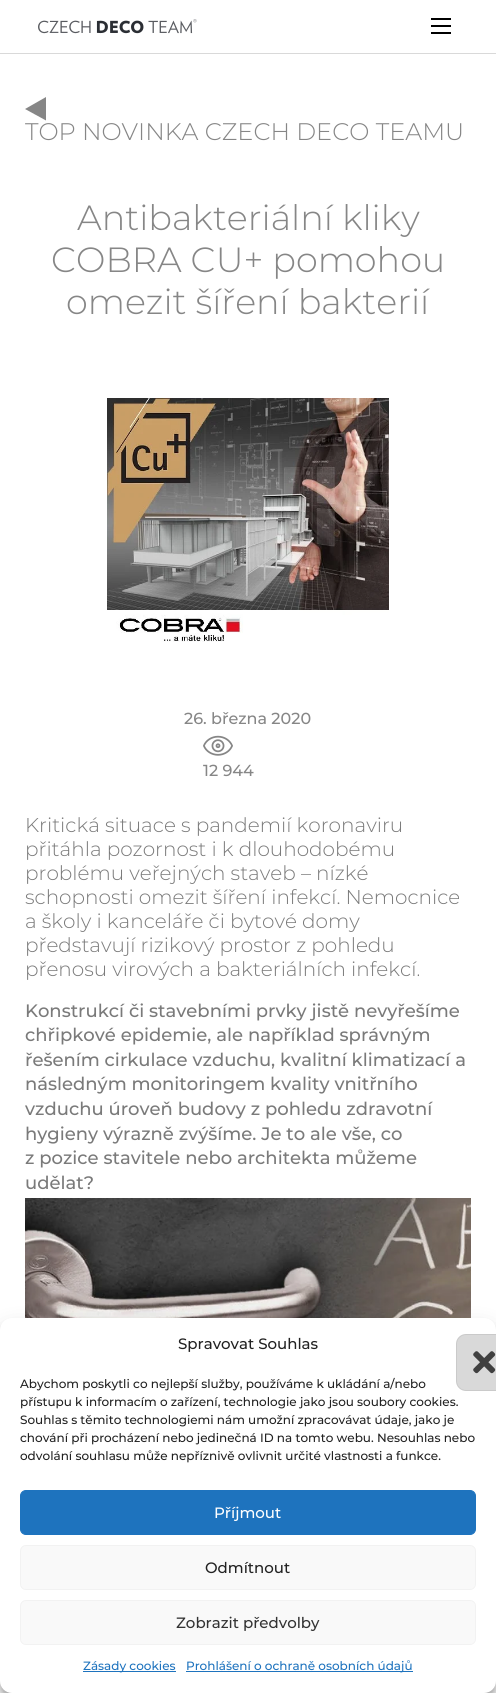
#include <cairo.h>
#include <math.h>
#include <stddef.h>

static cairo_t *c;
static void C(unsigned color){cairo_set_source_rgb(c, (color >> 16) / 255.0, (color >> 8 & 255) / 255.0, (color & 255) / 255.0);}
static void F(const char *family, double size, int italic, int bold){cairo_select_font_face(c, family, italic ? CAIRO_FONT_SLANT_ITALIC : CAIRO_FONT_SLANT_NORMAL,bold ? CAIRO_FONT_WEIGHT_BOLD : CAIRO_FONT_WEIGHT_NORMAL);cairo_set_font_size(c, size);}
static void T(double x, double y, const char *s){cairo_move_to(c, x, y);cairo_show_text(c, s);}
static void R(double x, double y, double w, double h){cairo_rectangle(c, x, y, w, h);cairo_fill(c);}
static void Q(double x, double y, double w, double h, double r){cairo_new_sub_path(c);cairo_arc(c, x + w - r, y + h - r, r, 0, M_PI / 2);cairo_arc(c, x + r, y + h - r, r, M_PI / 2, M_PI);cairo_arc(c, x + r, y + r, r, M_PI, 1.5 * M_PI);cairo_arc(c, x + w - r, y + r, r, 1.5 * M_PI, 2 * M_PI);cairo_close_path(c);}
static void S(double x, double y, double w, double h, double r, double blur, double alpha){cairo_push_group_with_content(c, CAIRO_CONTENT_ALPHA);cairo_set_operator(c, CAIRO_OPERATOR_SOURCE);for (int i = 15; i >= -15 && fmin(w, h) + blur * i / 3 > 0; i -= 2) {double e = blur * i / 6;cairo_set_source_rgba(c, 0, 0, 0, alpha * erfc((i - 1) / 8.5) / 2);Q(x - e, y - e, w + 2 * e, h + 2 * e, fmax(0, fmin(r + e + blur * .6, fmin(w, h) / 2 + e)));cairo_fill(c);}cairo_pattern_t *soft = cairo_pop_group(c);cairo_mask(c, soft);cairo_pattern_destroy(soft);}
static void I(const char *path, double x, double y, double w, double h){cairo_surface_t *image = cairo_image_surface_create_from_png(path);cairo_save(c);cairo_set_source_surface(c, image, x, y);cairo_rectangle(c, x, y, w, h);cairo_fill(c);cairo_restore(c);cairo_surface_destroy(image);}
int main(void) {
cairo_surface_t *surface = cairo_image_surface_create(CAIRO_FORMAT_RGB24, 496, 1693);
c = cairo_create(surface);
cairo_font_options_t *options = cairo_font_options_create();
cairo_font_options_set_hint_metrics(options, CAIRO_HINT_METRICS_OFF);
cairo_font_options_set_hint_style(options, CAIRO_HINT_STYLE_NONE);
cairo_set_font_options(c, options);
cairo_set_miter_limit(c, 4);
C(0xffffff);
cairo_paint(c);
C(0xd9d9d9);
R(0,53,496,1);
I("1.png",38,19,159,15);
C(0x000000);
R(431,18,20,2);
R(431,25,20,2);
R(431,32,20,2);
C(0x868686);
cairo_new_path(c);
cairo_move_to(c,25,109);
cairo_line_to(c,46,97);
cairo_line_to(c,46,120.5);
cairo_close_path(c);
cairo_fill(c);
F("Montserrat Light",24,0,0);
T(25,140,"TOP NOVINKA CZECH DECO TEAMU");
F("Montserrat Light",35,0,0);
T(77,230,"Antibakteriální kliky");
T(51,272,"COBRA CU+ pomohou");
T(66,314,"omezit šíření bakterií");
I("2.png",107,398,282,244);
F("Montserrat Medium",16,0,0);
T(184,724,"26. března 2020");
I("3.png",203,735,30,21);
T(203,776,"12 944");
F("Montserrat Light",20,0,0);
C(0x7a7a7a);
T(25,832,"Kritická situace s pandemií koronaviru");
T(25,856,"přitáhla pozornost i k dlouhodobému");
T(25,880,"problému veřejných staveb – nízké");
T(25,904,"schopnosti omezit šíření infekcí. Nemocnice");
T(25,928,"a školy i kanceláře či bytové domy");
T(25,952,"představují rizikový prostor z pohledu");
T(25,976,"přenosu virových a bakteriálních infekcí.");
F("Montserrat Medium",18,0,0);
T(25,1017,"Konstrukcí či stavebními prvky jistě nevyřešíme");
T(25,1041,"chřipkové epidemie, ale například správným");
T(25,1066,"řešením cirkulace vzduchu, kvalitní klimatizací a");
T(25,1090,"následným monitoringem kvality vnitřního");
T(25,1115,"vzduchu úroveň budovy z pohledu zdravotní");
T(25,1140,"hygieny výrazně zvýšíme. Je to ale vše, co");
T(25,1164,"z pozice stavitele nebo architekta můžeme");
T(25,1189,"udělat?");
I("4.png",25,1198,446,120);
C(0x000000);
S(0,1324,496,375,12,3,.23);
S(0,1328,496,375,12,10,.19);
C(0xffffff);
Q(0,1318,496,375,12);
cairo_fill(c);
F("Montserrat Medium",15,0,0);
C(0x222222);
T(178,1349,"Spravovat Souhlas");
C(0xd9d9d9);
Q(456,1334,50,57,10);
cairo_fill(c);
Q(456.5,1334.5,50,56,9.5);
cairo_set_source_rgba(c,0.251,0.251,0.251,0.1);
cairo_set_line_width(c,1);
cairo_stroke(c);
I("5.png",473,1351,23,23);
F("Montserrat Medium",12,0,0);
C(0x222222);
T(20,1388,"Abychom poskytli co nejlepší služby, používáme k ukládání a/nebo");
T(20,1406,"přístupu k informacím o zařízení, technologie jako jsou soubory cookies.");
T(20,1424,"Souhlas s těmito technologiemi nám umožní zpracovávat údaje, jako je");
T(20,1442,"chování při procházení nebo jedinečná ID na tomto webu. Nesouhlas nebo");
T(20,1460,"odvolání souhlasu může nepříznivě ovlivnit určité vlastnosti a funkce.");
C(0x1e73be);
Q(20.5,1490.5,455,44,5.5);
cairo_fill_preserve(c);
cairo_stroke(c);
F("Montserrat Medium",15,0,0);
C(0xffffff);
T(214,1518,"Příjmout");
C(0xf9f9f9);
Q(20.5,1545.5,455,44,5.5);
cairo_fill_preserve(c);
C(0xf2f2f2);
cairo_stroke(c);
C(0x222222);
T(205,1573,"Odmítnout");
C(0xf9f9f9);
Q(20.5,1600.5,455,44,5.5);
cairo_fill_preserve(c);
C(0xf2f2f2);
cairo_stroke(c);
C(0x333333);
T(176,1628,"Zobrazit předvolby");
C(0x1e73be);
R(83,1671,93,1);
F("Montserrat Medium",12,0,0);
T(83,1670,"Zásady cookies");
R(186,1671,227,1);
T(186,1670,"Prohlášení o ochraně osobních údajů");
cairo_surface_write_to_png(surface, "o.png");
cairo_font_options_destroy(options);
cairo_destroy(c);
cairo_surface_destroy(surface);
return 0;
}
